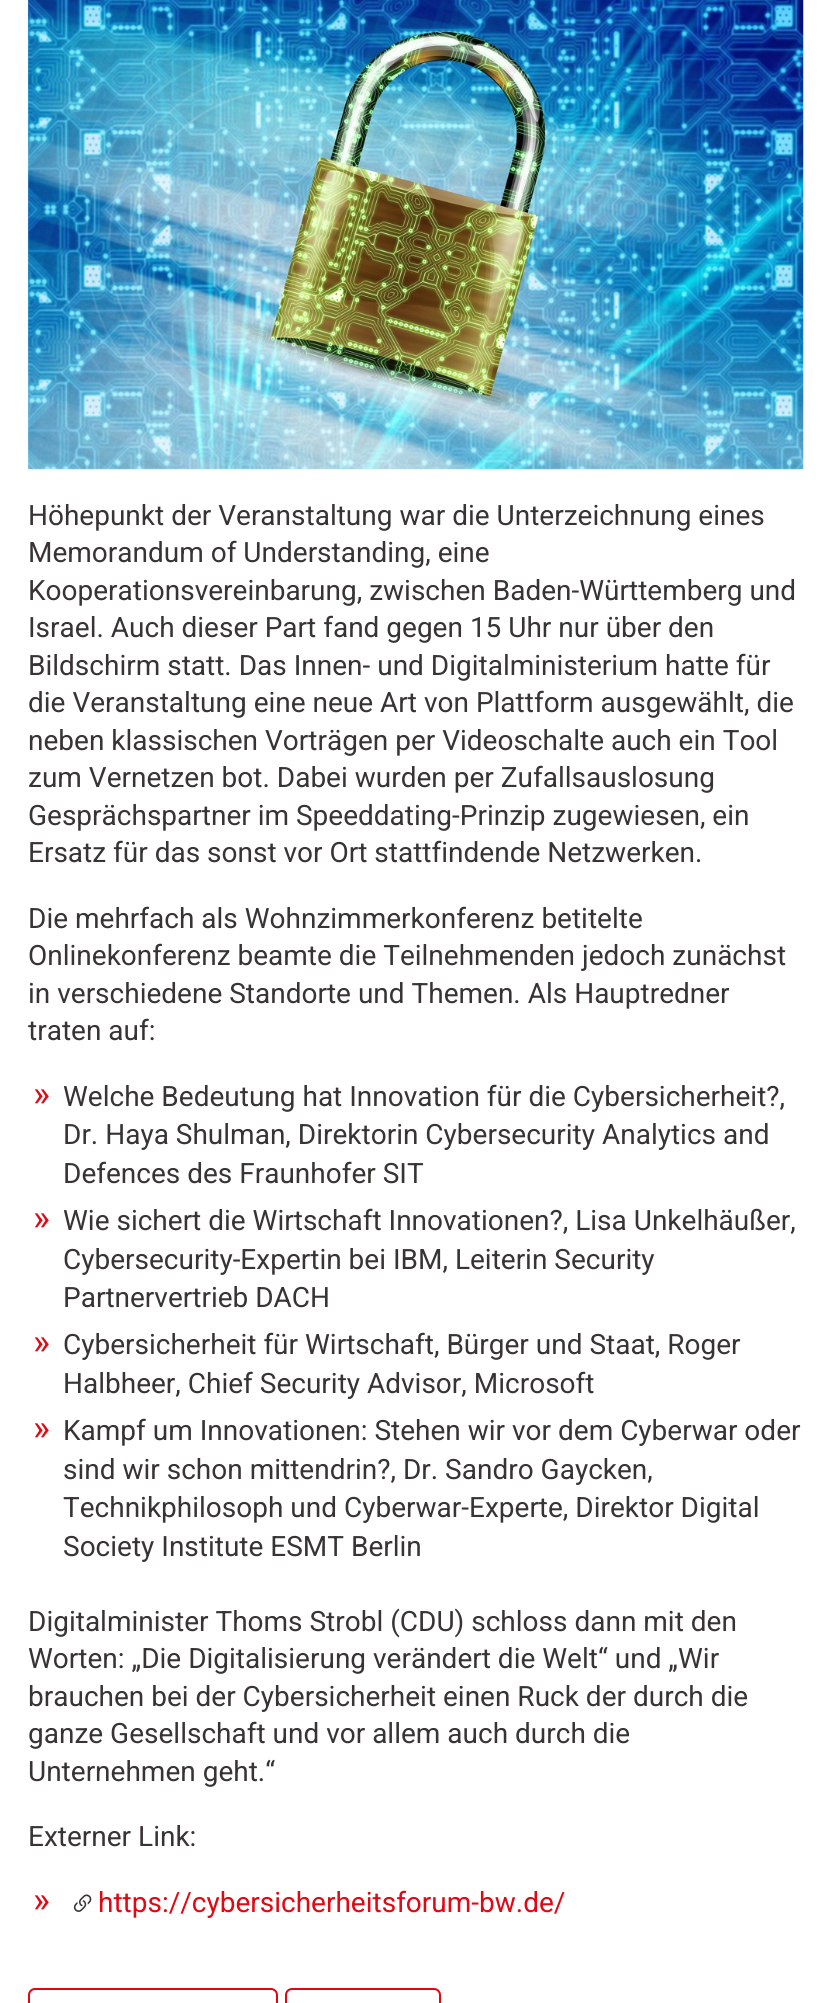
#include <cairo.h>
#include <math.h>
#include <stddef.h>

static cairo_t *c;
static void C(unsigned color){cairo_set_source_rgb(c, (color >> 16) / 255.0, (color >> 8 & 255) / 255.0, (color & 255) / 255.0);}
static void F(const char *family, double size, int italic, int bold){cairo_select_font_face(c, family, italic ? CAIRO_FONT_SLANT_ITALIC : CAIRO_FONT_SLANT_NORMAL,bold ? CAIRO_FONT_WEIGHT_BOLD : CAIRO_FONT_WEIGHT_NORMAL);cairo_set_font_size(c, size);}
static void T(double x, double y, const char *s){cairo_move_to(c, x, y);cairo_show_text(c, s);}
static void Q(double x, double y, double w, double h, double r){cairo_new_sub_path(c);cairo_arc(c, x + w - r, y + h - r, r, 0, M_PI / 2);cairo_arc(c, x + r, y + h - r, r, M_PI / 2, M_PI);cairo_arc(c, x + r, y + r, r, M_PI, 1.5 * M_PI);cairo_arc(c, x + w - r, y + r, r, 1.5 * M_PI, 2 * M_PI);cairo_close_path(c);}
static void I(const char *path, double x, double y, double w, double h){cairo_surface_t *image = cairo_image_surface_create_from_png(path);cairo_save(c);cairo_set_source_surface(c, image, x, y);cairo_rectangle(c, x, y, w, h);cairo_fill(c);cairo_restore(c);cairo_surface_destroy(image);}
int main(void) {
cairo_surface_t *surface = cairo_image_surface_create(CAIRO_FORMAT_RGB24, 831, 2003);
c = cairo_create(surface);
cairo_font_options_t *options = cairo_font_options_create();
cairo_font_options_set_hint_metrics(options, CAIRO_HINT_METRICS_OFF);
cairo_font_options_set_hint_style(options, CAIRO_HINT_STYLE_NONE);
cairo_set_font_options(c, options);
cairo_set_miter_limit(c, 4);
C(0xffffff);
cairo_paint(c);
I("1.png",28,0,776,470);
F("Roboto",28,0,0);
C(0x393434);
T(28,525,"Höhepunkt der Veranstaltung war die Unterzeichnung eines");
T(28,562,"Memorandum of Understanding, eine");
T(28,600,"Kooperationsvereinbarung, zwischen Baden-Württemberg und");
T(28,637,"Israel. Auch dieser Part fand gegen 15 Uhr nur über den");
T(28,675,"Bildschirm statt. Das Innen- und Digitalministerium hatte für");
T(28,712,"die Veranstaltung eine neue Art von Plattform ausgewählt, die");
T(28,750,"neben klassischen Vorträgen per Videoschalte auch ein Tool");
T(28,787,"zum Vernetzen bot. Dabei wurden per Zufallsauslosung");
T(28,825,"Gesprächspartner im Speeddating-Prinzip zugewiesen, ein");
T(28,862,"Ersatz für das sonst vor Ort stattfindende Netzwerken.");
T(28,928,"Die mehrfach als Wohnzimmerkonferenz betitelte");
T(28,965,"Onlinekonferenz beamte die Teilnehmenden jedoch zunächst");
T(28,1003,"in verschiedene Standorte und Themen. Als Hauptredner");
T(28,1040,"traten auf:");
F("Roboto",36,0,0);
C(0xe30613);
T(33,1106,"»");
F("Roboto",28,0,0);
C(0x393434);
T(63,1106,"Welche Bedeutung hat Innovation für die Cybersicherheit?,");
T(63,1144,"Dr. Haya Shulman, Direktorin Cybersecurity Analytics and");
T(63,1183,"Defences des Fraunhofer SIT");
F("Roboto",36,0,0);
C(0xe30613);
T(33,1230,"»");
F("Roboto",28,0,0);
C(0x393434);
T(63,1230,"Wie sichert die Wirtschaft Innovationen?, Lisa Unkelhäußer,");
T(63,1269,"Cybersecurity-Expertin bei IBM, Leiterin Security");
T(63,1307,"Partnervertrieb DACH");
F("Roboto",36,0,0);
C(0xe30613);
T(33,1354,"»");
F("Roboto",28,0,0);
C(0x393434);
T(63,1354,"Cybersicherheit für Wirtschaft, Bürger und Staat, Roger");
T(63,1393,"Halbheer, Chief Security Advisor, Microsoft");
F("Roboto",36,0,0);
C(0xe30613);
T(33,1440,"»");
F("Roboto",28,0,0);
C(0x393434);
T(63,1440,"Kampf um Innovationen: Stehen wir vor dem Cyberwar oder");
T(63,1479,"sind wir schon mittendrin?, Dr. Sandro Gaycken,");
T(63,1517,"Technikphilosoph und Cyberwar-Experte, Direktor Digital");
T(63,1556,"Society Institute ESMT Berlin");
T(28,1631,"Digitalminister Thoms Strobl (CDU) schloss dann mit den");
T(28,1668,"Worten: „Die Digitalisierung verändert die Welt“ und „Wir");
T(28,1706,"brauchen bei der Cybersicherheit einen Ruck der durch die");
T(28,1743,"ganze Gesellschaft und vor allem auch durch die");
T(28,1781,"Unternehmen geht.“");
T(28,1846,"Externer Link:");
F("Roboto",36,0,0);
C(0xe30613);
T(33,1912,"»");
I("2.png",73,1894,19,18);
F("Roboto",28,0,0);
T(98,1912,"https://cybersicherheitsforum-bw.de/");
Q(29,1989,248,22,6);
C(0xe30512);
cairo_stroke(c);
Q(286,1989,154,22,6);
cairo_stroke(c);
cairo_surface_write_to_png(surface, "o.png");
cairo_font_options_destroy(options);
cairo_destroy(c);
cairo_surface_destroy(surface);
return 0;
}
